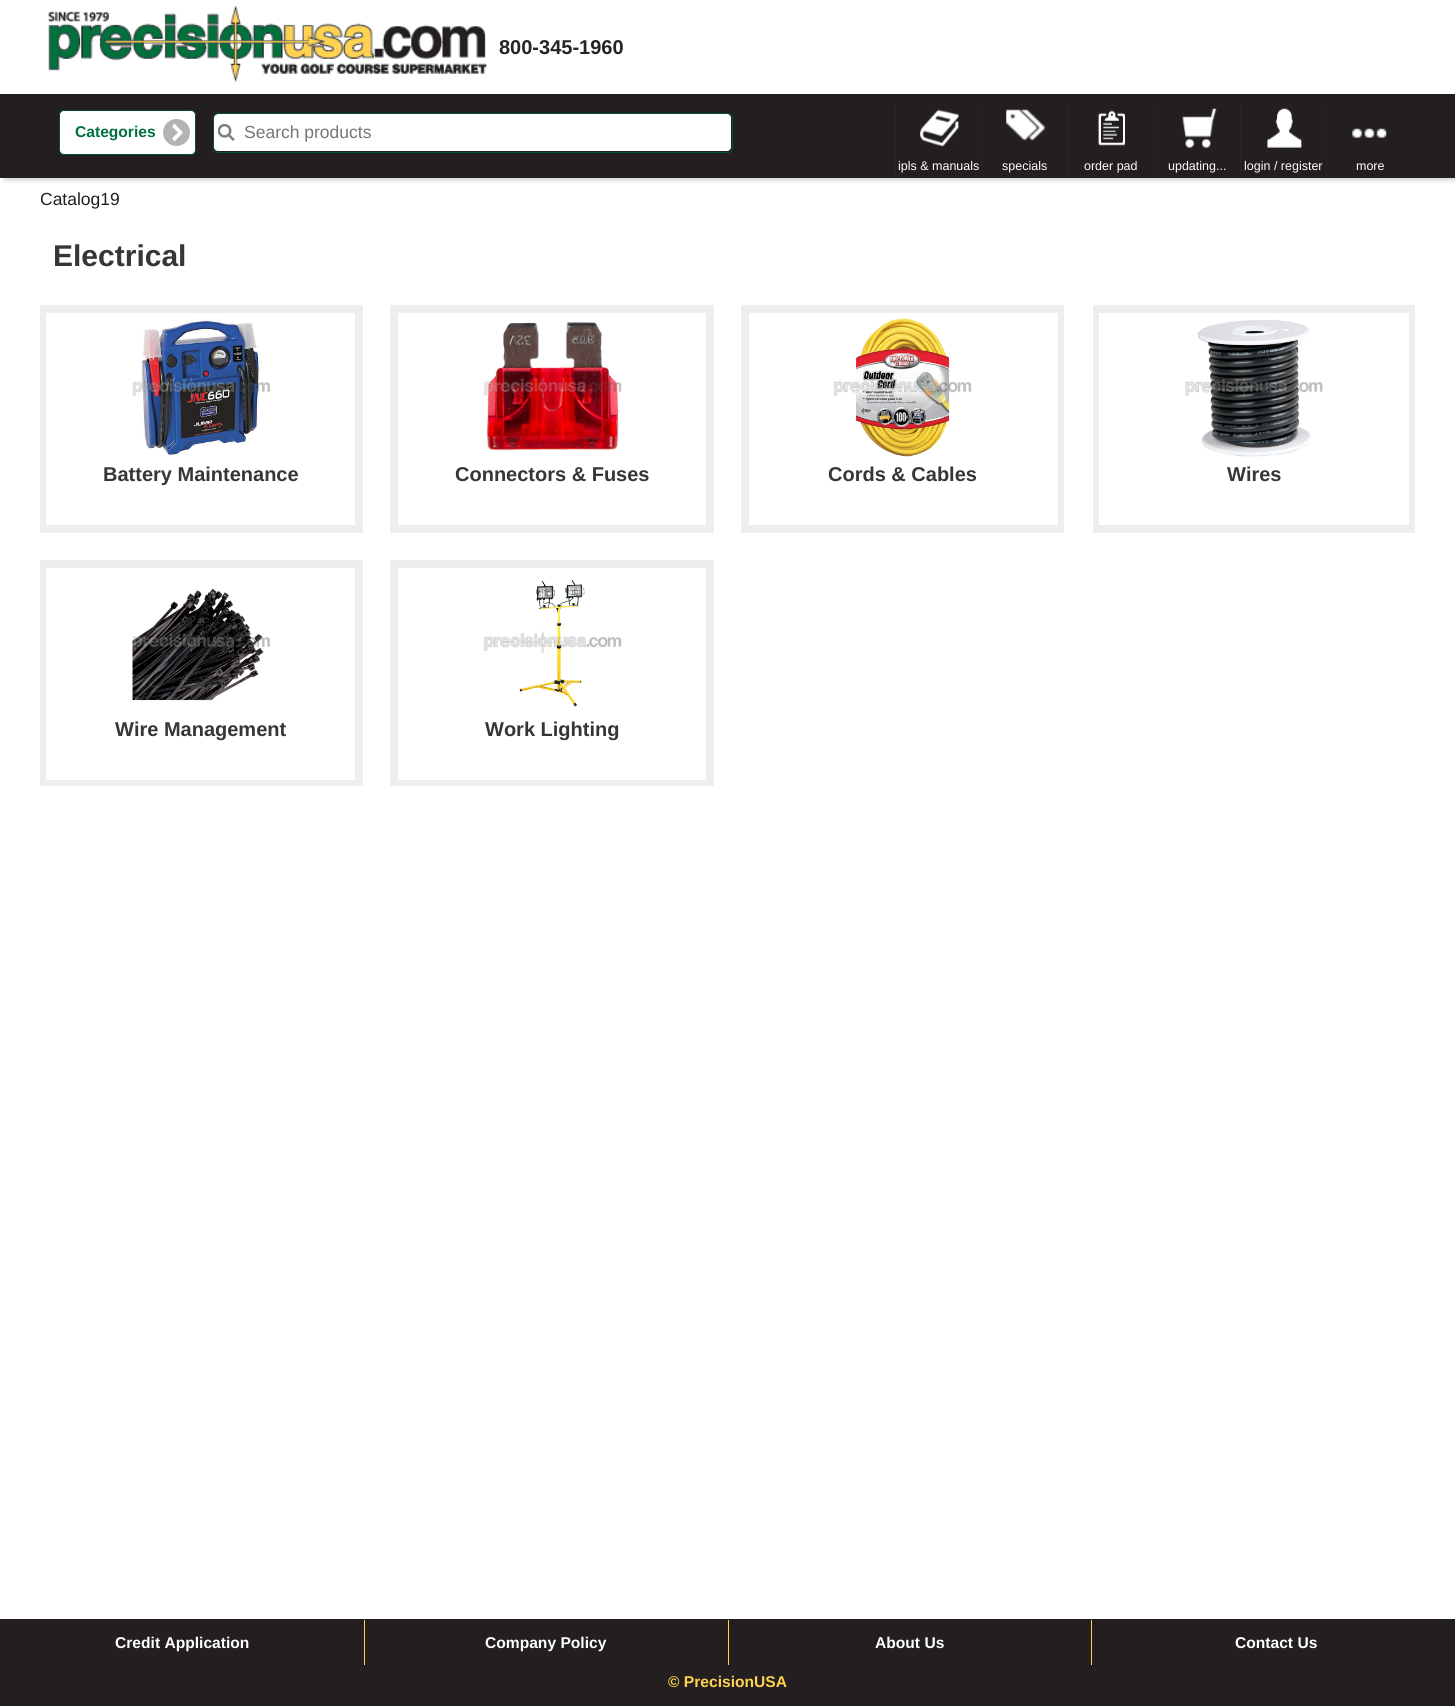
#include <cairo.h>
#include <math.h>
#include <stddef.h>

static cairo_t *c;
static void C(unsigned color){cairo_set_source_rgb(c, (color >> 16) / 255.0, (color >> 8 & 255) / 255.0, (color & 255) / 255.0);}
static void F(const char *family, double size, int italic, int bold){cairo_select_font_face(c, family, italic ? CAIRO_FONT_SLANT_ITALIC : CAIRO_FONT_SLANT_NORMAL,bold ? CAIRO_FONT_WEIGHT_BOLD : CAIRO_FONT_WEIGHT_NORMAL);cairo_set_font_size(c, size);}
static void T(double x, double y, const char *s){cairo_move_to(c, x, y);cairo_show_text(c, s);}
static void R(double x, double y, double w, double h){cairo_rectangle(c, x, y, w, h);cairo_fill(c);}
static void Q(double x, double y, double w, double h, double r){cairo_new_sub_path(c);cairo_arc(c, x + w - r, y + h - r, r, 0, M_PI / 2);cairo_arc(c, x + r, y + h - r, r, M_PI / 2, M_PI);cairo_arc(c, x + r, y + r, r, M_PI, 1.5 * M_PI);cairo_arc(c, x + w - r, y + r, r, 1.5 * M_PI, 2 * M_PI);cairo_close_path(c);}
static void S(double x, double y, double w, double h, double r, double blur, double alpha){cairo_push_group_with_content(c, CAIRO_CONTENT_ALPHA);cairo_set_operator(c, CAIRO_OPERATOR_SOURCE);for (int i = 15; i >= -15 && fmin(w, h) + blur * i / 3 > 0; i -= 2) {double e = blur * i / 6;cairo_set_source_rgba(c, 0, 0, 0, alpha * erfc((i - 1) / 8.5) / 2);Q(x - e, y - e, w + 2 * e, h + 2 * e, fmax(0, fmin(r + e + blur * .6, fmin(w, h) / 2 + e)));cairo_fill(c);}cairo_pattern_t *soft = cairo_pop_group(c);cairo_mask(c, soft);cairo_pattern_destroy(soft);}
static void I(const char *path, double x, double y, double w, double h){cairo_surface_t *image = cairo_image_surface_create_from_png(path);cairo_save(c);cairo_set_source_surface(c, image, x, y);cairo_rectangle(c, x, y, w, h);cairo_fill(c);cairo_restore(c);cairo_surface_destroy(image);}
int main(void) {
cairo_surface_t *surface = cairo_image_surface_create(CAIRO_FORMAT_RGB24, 1455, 1706);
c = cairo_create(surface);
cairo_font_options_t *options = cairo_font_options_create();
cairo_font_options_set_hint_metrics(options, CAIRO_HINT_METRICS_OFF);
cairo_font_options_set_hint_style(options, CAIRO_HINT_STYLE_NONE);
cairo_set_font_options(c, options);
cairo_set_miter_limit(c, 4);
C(0xffffff);
cairo_paint(c);
C(0x000000);
S(4,3,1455,178,0,2,.15);
C(0x231f20);
R(0,94,1455,84);
C(0xffffff);
R(1,0,1454,94);
I("1.png",48,6,439,76);
F("Liberation Sans",20,0,1);
C(0x252525);
T(499,54,"800-345-1960");
C(0xffffff);
Q(59.5,110.5,136,44,4.5);
cairo_fill_preserve(c);
C(0x01542d);
cairo_set_line_width(c,1);
cairo_stroke(c);
F("Liberation Sans",15.6,0,1);
C(0x00703c);
T(75,137,"Categories");
C(0xb3b3b3);
cairo_new_path(c);
cairo_arc(c,176.5,132.5,13.5,0,2 * M_PI);
cairo_fill(c);
C(0xffffff);
cairo_new_path(c);
cairo_move_to(c,172,126.5);
cairo_line_to(c,178,132.5);
cairo_line_to(c,172,138.5);
cairo_line_to(c,174.5,141.5);
cairo_line_to(c,183,132.5);
cairo_line_to(c,174.5,123.5);
cairo_close_path(c);
cairo_fill(c);
Q(214,114,517,37,4);
cairo_fill(c);
Q(213.5,113.5,519,39,4.5);
C(0x01542d);
cairo_stroke(c);
I("2.png",218,124,17,17);
F("Liberation Sans",17.5,0,0);
C(0x757575);
T(244,138,"Search products");
I("3.png",920,109,39,38);
C(0x252525);
R(895,104,1,72);
F("Liberation Sans",12.5,0,0);
C(0xffffff);
T(898,170,"ipls & manuals");
I("4.png",1006,109,40,32);
C(0x252525);
R(981,104,1,72);
C(0xffffff);
T(1002,170,"specials");
I("5.png",1098,110,27,36);
C(0x252525);
R(1068,104,1,72);
C(0xffffff);
T(1084,170,"order pad");
I("6.png",1182,108,35,40);
C(0x252525);
R(1154,104,1,72);
C(0xffffff);
T(1168,170,"updating...");
I("7.png",1267,108,35,40);
C(0x252525);
R(1240,104,1,72);
C(0xffffff);
T(1244,170,"login / register");
I("8.png",1352,128,35,10);
C(0x252525);
R(1326,104,1,72);
C(0xffffff);
T(1356,170,"more");
F("Liberation Sans",17.5,0,0);
C(0x231f20);
T(40,205,"Catalog19");
F("Liberation Sans",30,0,1);
C(0x363636);
T(53,266,"Electrical");
C(0xeeeeee);
R(40,305,323,228);
C(0xffffff);
R(46,313,309,212);
I("9.png",132,319,138,137);
F("Liberation Sans",20,0,1);
C(0x363636);
T(103,481,"Battery Maintenance");
C(0xeeeeee);
R(390,305,324,228);
C(0xffffff);
R(398,313,308,212);
I("10.png",483,322,139,129);
C(0x363636);
T(455,481,"Connectors & Fuses");
C(0xeeeeee);
R(741,305,323,228);
C(0xffffff);
R(749,313,309,212);
I("11.png",833,318,139,139);
C(0x363636);
T(828,481,"Cords & Cables");
C(0xeeeeee);
R(1093,305,322,228);
C(0xffffff);
R(1099,313,310,212);
I("12.png",1185,319,138,138);
C(0x363636);
T(1227,481,"Wires");
C(0xeeeeee);
R(40,560,323,226);
C(0xffffff);
R(46,568,309,212);
I("13.png",132,588,138,113);
C(0x363636);
T(115,736,"Wire Management");
C(0xeeeeee);
R(390,560,324,226);
C(0xffffff);
R(398,568,308,212);
I("14.png",483,580,139,127);
C(0x363636);
T(485,736,"Work Lighting");
C(0x231f20);
R(0,1619,1455,87);
F("Liberation Sans",15.6,0,1);
C(0xffffff);
T(115,1648,"Credit Application");
C(0xffd24f);
R(364,1620,1,45);
C(0xffffff);
T(485,1648,"Company Policy");
C(0xffd24f);
R(728,1620,1,45);
C(0xffffff);
T(875,1648,"About Us");
C(0xffd24f);
R(1091,1620,1,45);
C(0xffffff);
T(1235,1648,"Contact Us");
C(0xffd24f);
T(668,1687,"© PrecisionUSA");
cairo_surface_write_to_png(surface, "o.png");
cairo_font_options_destroy(options);
cairo_destroy(c);
cairo_surface_destroy(surface);
return 0;
}
